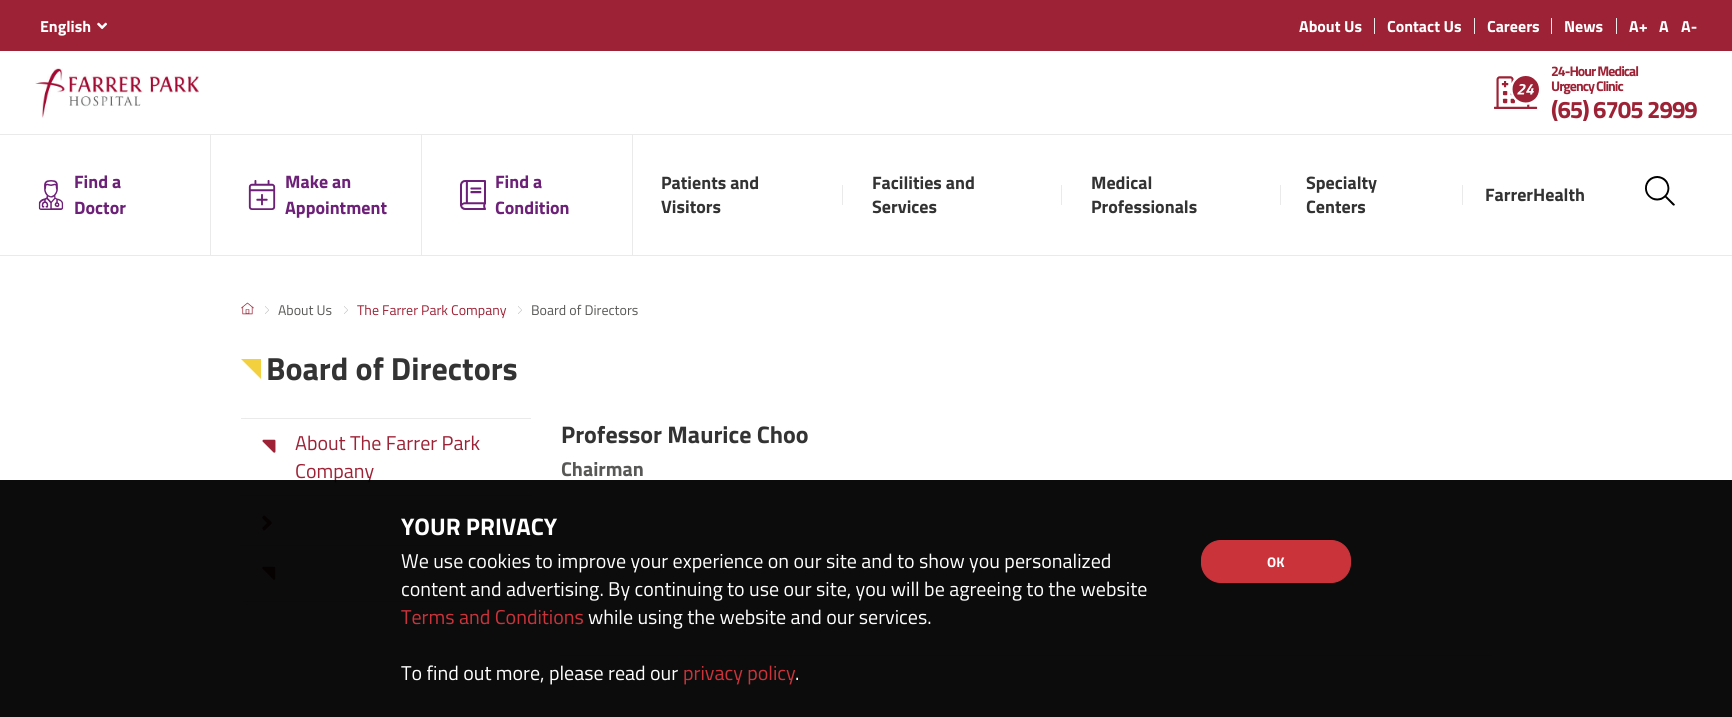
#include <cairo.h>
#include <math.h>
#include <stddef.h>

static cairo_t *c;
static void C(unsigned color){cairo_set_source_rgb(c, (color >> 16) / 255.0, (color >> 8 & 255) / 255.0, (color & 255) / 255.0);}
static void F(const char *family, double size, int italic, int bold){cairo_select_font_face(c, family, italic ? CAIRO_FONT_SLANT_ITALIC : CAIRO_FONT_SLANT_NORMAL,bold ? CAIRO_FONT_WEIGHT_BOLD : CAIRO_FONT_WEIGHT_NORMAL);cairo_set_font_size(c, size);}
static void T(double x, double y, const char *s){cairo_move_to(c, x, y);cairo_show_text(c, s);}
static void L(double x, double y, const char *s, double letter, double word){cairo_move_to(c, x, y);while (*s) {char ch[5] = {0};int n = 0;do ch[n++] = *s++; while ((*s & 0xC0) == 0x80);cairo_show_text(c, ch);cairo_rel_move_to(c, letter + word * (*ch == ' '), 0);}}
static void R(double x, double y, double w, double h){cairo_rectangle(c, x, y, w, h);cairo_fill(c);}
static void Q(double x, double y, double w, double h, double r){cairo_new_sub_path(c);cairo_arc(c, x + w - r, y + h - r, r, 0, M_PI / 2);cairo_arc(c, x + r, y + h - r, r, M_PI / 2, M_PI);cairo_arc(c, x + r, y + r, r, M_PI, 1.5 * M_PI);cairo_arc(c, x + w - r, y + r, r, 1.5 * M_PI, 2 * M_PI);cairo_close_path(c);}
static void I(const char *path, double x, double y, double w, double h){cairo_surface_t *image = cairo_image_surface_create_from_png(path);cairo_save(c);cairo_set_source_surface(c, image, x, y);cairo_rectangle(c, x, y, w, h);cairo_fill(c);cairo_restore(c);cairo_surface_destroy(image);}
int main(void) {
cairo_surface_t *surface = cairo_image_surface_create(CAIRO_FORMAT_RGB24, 1732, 717);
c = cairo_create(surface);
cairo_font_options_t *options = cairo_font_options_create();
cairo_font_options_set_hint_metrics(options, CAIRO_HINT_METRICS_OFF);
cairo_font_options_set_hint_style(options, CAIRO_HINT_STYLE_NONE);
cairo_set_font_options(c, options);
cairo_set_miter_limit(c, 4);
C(0xffffff);
cairo_paint(c);
C(0x9d2235);
R(0,0,1732,51);
F("Titillium Web",16,0,1);
C(0xffffff);
T(40,32,"English");
I("1.png",97,22,11,8);
T(1299,32,"About Us");
C(0xeaeaea);
R(1374,18,1,16);
C(0xffffff);
T(1387,32,"Contact Us");
C(0xeaeaea);
R(1474,18,1,16);
C(0xffffff);
T(1487,32,"Careers");
C(0xeaeaea);
R(1551,18,1,16);
C(0xffffff);
T(1564,32,"News");
C(0xeaeaea);
R(1616,18,1,16);
C(0xffffff);
T(1629,32,"A+");
T(1659,32,"A");
T(1681,32,"A-");
I("2.png",35,68,164,50);
I("3.png",1494,76,45,33);
F("Titillium Web",14,0,1);
C(0x9d2235);
L(1551,76,"24-Hour Medical",-1,0);
L(1551,91,"Urgency Clinic",-1,0);
F("Titillium Web",24,0,1);
L(1551,118,"(65) 6705 2999",-1,0);
C(0xeaeaea);
R(0,134,1732,1);
R(0,255,1732,1);
R(210,135,1,120);
I("4.png",38,180,26,30);
F("Titillium Web",18,0,1);
C(0x6d2077);
T(74,188,"Find a");
T(74,214,"Doctor");
C(0xeaeaea);
R(421,135,1,120);
I("5.png",248,180,28,30);
C(0x6d2077);
T(285,188,"Make an");
T(285,214,"Appointment");
C(0xeaeaea);
R(632,135,1,120);
I("6.png",460,180,26,30);
C(0x6d2077);
T(495,188,"Find a");
T(495,214,"Condition");
C(0x333333);
T(661,189,"Patients and");
T(661,213,"Visitors");
C(0xeaeaea);
R(842,185,1,20);
C(0x333333);
T(872,189,"Facilities and");
T(872,213,"Services");
C(0xeaeaea);
R(1061,185,1,20);
C(0x333333);
T(1091,189,"Medical");
T(1091,213,"Professionals");
C(0xeaeaea);
R(1280,185,1,20);
C(0x333333);
T(1306,189,"Specialty");
T(1306,213,"Centers");
C(0xeaeaea);
R(1462,185,1,20);
C(0x333333);
T(1485,201,"FarrerHealth");
I("7.png",1645,176,30,30);
I("8.png",241,302,13,13);
I("9.png",265,306,4,8);
F("Titillium Web",14,0,0);
C(0x585857);
T(278,315,"About Us");
I("9.png",344,306,4,8);
C(0x9d2235);
T(357,315,"The Farrer Park Company");
I("9.png",518,306,4,8);
C(0x585857);
T(531,315,"Board of Directors");
C(0xf3d03e);
cairo_new_path(c);
cairo_move_to(c,261,359);
cairo_line_to(c,261,379);
cairo_line_to(c,241,359);
cairo_close_path(c);
cairo_fill(c);
F("Titillium Web",32,0,1);
C(0x333333);
T(266,380,"Board of Directors");
C(0xeaeaea);
R(241,418,290,1);
R(244,601,285,1);
R(241,495,290,1);
I("10.png",262,439,14,14);
F("Titillium Web",20,0,0);
C(0x9d2235);
T(295,450,"About The Farrer Park");
T(295,478,"Company");
C(0xeaeaea);
R(241,545,290,1);
I("11.png",262,515,10,16);
I("12.png",262,566,14,14);
F("Titillium Web",24,0,1);
C(0x333333);
T(561,443,"Professor Maurice Choo");
F("Titillium Web",20,0,1);
C(0x585857);
T(561,476,"Chairman");
C(0xe6e6e6);
R(561,655,930,1);
cairo_set_source_rgba(c,0,0,0,0.95);
R(0,480,1732,237);
F("Titillium Web",24,0,1);
C(0xffffff);
T(401,535,"YOUR PRIVACY");
F("Titillium Web",20,0,0);
T(401,568,"We use cookies to improve your experience on our site and to show you personalized");
T(401,596,"content and advertising. By continuing to use our site, you will be agreeing to the website");
C(0xcb333b);
T(401,624,"Terms and Conditions");
C(0xffffff);
T(588,624,"while using the website and our services.");
T(401,680,"To find out more, please read our");
C(0xcb333b);
T(683,680,"privacy policy");
C(0xffffff);
T(795,680,".");
C(0xcb333b);
Q(1201.5,540.5,149,42,19.5);
cairo_fill_preserve(c);
cairo_set_line_width(c,1);
cairo_stroke(c);
F("Titillium Web",14,0,1);
C(0xffffff);
T(1267,567,"OK");
cairo_surface_write_to_png(surface, "o.png");
cairo_font_options_destroy(options);
cairo_destroy(c);
cairo_surface_destroy(surface);
return 0;
}
